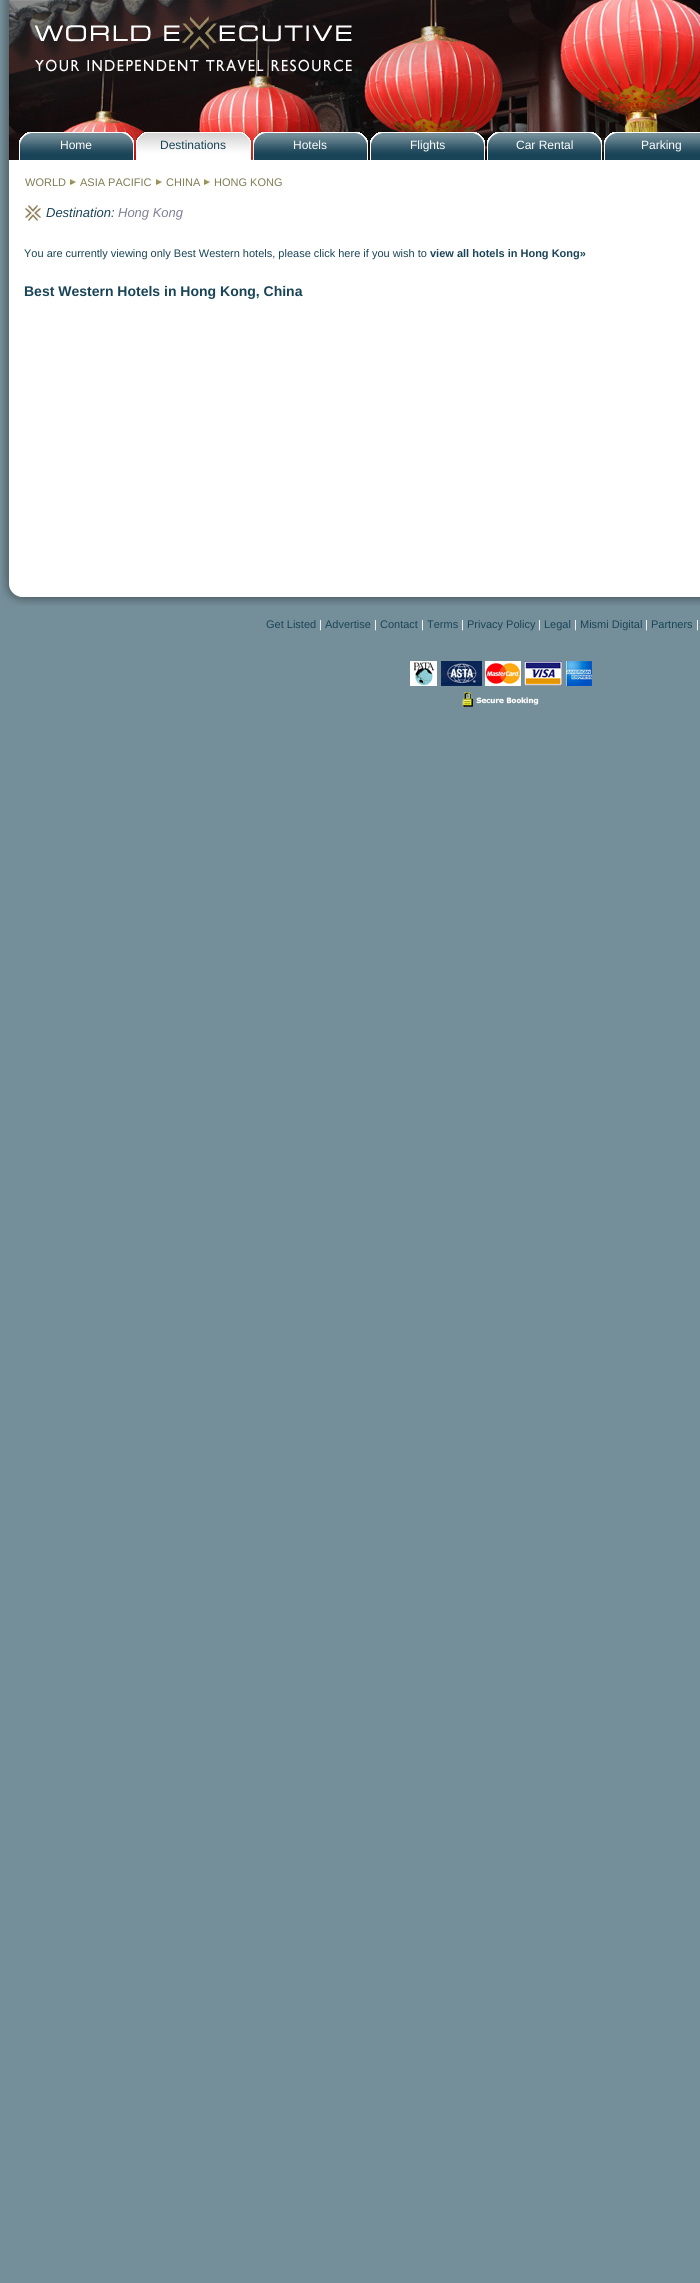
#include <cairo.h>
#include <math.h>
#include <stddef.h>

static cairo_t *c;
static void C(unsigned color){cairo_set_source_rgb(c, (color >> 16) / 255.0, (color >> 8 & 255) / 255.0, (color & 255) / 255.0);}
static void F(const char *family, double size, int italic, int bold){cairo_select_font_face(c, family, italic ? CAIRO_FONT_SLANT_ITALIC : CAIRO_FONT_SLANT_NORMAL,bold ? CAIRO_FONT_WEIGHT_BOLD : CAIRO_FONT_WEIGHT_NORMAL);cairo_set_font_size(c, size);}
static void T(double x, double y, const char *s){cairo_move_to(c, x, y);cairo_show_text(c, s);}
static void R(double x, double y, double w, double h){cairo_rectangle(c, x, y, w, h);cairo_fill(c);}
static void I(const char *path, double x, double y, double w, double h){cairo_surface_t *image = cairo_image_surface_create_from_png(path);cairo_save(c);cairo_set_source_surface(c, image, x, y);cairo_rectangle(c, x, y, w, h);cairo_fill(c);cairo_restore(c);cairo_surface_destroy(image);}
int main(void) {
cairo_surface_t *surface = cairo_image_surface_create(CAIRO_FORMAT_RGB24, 700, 2283);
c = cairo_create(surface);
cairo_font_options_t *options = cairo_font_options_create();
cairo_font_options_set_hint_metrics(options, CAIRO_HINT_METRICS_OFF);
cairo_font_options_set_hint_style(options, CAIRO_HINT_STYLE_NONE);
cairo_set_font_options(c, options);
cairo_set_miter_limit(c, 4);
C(0x758f9a);
cairo_paint(c);
I("1.png",1,0,8,577);
C(0xffffff);
R(9,160,691,417);
I("2.png",9,0,691,160);
I("3.png",19,132,115,28);
F("Liberation Sans",12,0,0);
T(60,149,"Home");
I("4.png",136,132,115,28);
C(0x194457);
T(160,149,"Destinations");
I("5.png",253,132,115,28);
C(0xffffff);
T(293,149,"Hotels");
I("6.png",370,132,115,28);
T(410,149,"Flights");
I("7.png",487,132,115,28);
T(516,149,"Car Rental");
I("8.png",604,132,96,28);
T(641,149,"Parking");
F("Liberation Sans",11,0,0);
C(0x7f7c53);
T(25,186,"WORLD");
I("9.png",69,178,8,8);
T(80,186,"ASIA PACIFIC");
I("9.png",155,178,8,8);
T(166,186,"CHINA");
I("9.png",203,178,8,8);
T(214,186,"HONG KONG");
I("10.png",25,205,16,16);
F("Liberation Sans",13,1,0);
C(0x194457);
T(46,217,"Destination:");
C(0x7f7f99);
T(118,217,"Hong Kong");
F("Liberation Sans",11,0,0);
C(0x194457);
T(24,257,"You are currently viewing only Best Western hotels, please click here if you wish to");
F("Liberation Sans",11,0,1);
T(430,257,"view all hotels in Hong Kong»");
F("Liberation Sans",14,0,1);
T(24,296,"Best Western Hotels in Hong Kong, China");
I("11.png",1,577,699,29);
F("Liberation Sans",11,0,0);
T(266,628,"Get Listed");
C(0xffffff);
T(319,628,"|");
C(0x194457);
T(325,628,"Advertise");
C(0xffffff);
T(374,628,"|");
C(0x194457);
T(380,628,"Contact");
C(0xffffff);
T(421,628,"|");
C(0x194457);
T(427,628,"Terms");
C(0xffffff);
T(461,628,"|");
C(0x194457);
T(467,628,"Privacy Policy");
C(0xffffff);
T(538,628,"|");
C(0x194457);
T(544,628,"Legal");
C(0xffffff);
T(574,628,"|");
C(0x194457);
T(580,628,"Mismi Digital");
C(0xffffff);
T(645,628,"|");
C(0x194457);
T(651,628,"Partners");
C(0xffffff);
T(696,628,"|");
I("12.png",410,661,182,25);
I("13.png",462,692,77,15);
cairo_surface_write_to_png(surface, "o.png");
cairo_font_options_destroy(options);
cairo_destroy(c);
cairo_surface_destroy(surface);
return 0;
}
